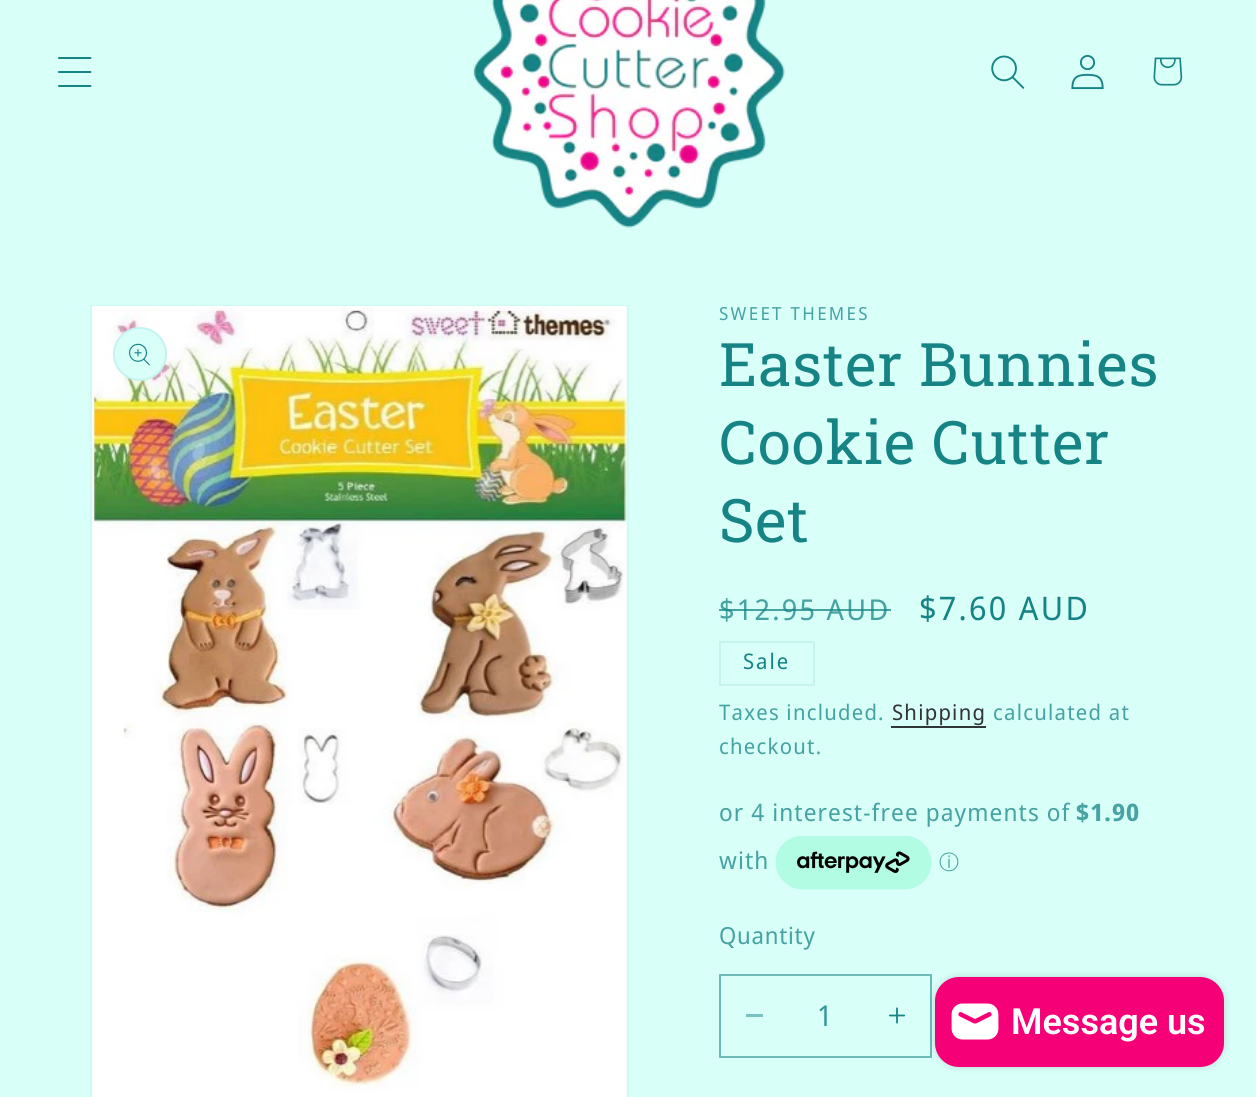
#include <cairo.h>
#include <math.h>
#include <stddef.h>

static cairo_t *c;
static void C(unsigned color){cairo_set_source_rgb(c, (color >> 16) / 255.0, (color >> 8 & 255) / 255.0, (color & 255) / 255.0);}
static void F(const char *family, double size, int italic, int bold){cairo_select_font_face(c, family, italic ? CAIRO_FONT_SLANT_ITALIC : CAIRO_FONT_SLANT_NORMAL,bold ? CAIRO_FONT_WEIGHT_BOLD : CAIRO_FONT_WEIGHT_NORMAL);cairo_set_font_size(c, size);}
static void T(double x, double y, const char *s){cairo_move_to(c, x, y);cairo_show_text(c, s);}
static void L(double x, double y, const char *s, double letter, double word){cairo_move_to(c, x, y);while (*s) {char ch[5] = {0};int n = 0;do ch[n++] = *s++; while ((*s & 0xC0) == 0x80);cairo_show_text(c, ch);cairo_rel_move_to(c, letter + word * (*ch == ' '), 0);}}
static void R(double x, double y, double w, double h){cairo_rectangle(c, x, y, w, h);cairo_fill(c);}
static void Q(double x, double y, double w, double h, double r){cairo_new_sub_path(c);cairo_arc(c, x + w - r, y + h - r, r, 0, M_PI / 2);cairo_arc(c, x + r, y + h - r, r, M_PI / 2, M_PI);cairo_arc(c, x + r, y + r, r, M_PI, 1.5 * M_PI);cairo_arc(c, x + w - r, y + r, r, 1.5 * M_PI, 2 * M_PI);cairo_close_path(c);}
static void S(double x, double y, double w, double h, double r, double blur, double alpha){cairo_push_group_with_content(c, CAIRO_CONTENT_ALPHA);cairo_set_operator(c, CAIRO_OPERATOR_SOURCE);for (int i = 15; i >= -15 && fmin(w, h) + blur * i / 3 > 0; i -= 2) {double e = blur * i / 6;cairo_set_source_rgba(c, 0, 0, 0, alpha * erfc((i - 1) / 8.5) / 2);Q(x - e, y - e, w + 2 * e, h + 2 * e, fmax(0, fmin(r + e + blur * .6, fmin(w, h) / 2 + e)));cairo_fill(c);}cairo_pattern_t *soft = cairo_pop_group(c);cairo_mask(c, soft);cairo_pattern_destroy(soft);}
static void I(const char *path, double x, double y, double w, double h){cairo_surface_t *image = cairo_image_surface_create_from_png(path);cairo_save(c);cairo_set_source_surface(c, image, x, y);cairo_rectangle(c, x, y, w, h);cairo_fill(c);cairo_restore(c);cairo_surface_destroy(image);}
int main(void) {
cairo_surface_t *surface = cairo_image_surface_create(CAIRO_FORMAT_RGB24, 1256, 1097);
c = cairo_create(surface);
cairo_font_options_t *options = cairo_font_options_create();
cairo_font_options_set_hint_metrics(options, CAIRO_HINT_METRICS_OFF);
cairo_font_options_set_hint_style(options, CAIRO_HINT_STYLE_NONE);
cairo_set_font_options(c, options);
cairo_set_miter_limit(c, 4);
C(0xd9fff9);
cairo_paint(c);
I("1.png",58,57,34,30);
I("2.png",473,0,312,228);
I("3.png",991,55,34,34);
I("4.png",1071,54,33,36);
I("5.png",1153,57,30,29);
cairo_rectangle(c,91,306,537,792);
C(0xcff9f3);
cairo_stroke(c);
I("6.png",92,306,535,791);
C(0xd9fff9);
cairo_arc(c,140,354,27,0,2 * M_PI);
cairo_fill(c);
cairo_arc(c,140,354,26,0,2 * M_PI);
cairo_set_source_rgba(c,0.086,0.518,0.522,0.1);
cairo_stroke(c);
I("7.png",129,343,21,23);
F("Noto Sans Display",18,0,0);
C(0x47a3a2);
L(719,320,"SWEET THEMES",2.3,0);
F("Roboto Slab",60,0,0);
C(0x168485);
L(719,386,"Easter Bunnies",.9,0);
L(719,464,"Cookie Cutter",.9,0);
L(719,542,"Set",.9,0);
F("Noto Sans Display",28.75,0,0);
C(0x47a3a2);
L(719,620,"$12.95 AUD",2.3,0);
cairo_set_source_rgba(c,0.086,0.518,0.522,0.75);
R(719,609,172,2);
F("Noto Sans Display",32.5,0,0);
C(0x168485);
L(919,620,"$7.60 AUD",2.3,0);
cairo_rectangle(c,720,642,94,43);
C(0xc5f3ed);
cairo_stroke(c);
F("Noto Sans Display",21.5,0,0);
C(0x168485);
L(743,669,"Sale",2,0);
C(0x47a3a2);
L(719,720,"Taxes included.",1.25,0);
C(0x303635);
L(892,720,"Shipping",1.25,0);
R(891,726,95,2);
C(0x47a3a2);
L(993,720,"calculated at",1.25,0);
L(719,754,"checkout.",1.25,0);
F("Noto Sans Display",24,0,0);
L(719,821,"or 4 interest-free payments of",1.1,0);
F("Noto Sans Display",24,0,1);
L(1076,821,"$1.90",1.1,0);
F("Noto Sans Display",24,0,0);
L(719,869,"with",1.1,0);
I("8.png",776,836,156,54);
F("WenQuanYi Zen Hei Medium",20,0,0);
T(939,869,"ⓘ");
F("Noto Sans Display",23.5,0,0);
L(719,944,"Quantity",.75,0);
C(0x78c2bf);
R(746,1014,17,3);
I("9.png",888,1007,18,17);
cairo_rectangle(c,720,975,211,82);
C(0x6ebbb9);
cairo_stroke(c);
F("Noto Sans Display",28.75,0,0);
C(0x339696);
T(817,1026,"1");
C(0x000000);
S(935,977,289,90,24,4,.15);
C(0xf60077);
Q(935,977,289,90,24);
cairo_fill(c);
I("10.png",951,1003,48,37);
F("Roboto SemiBold",36,0,0);
C(0xffffff);
T(1011,1034,"Message us");
cairo_surface_write_to_png(surface, "o.png");
cairo_font_options_destroy(options);
cairo_destroy(c);
cairo_surface_destroy(surface);
return 0;
}
